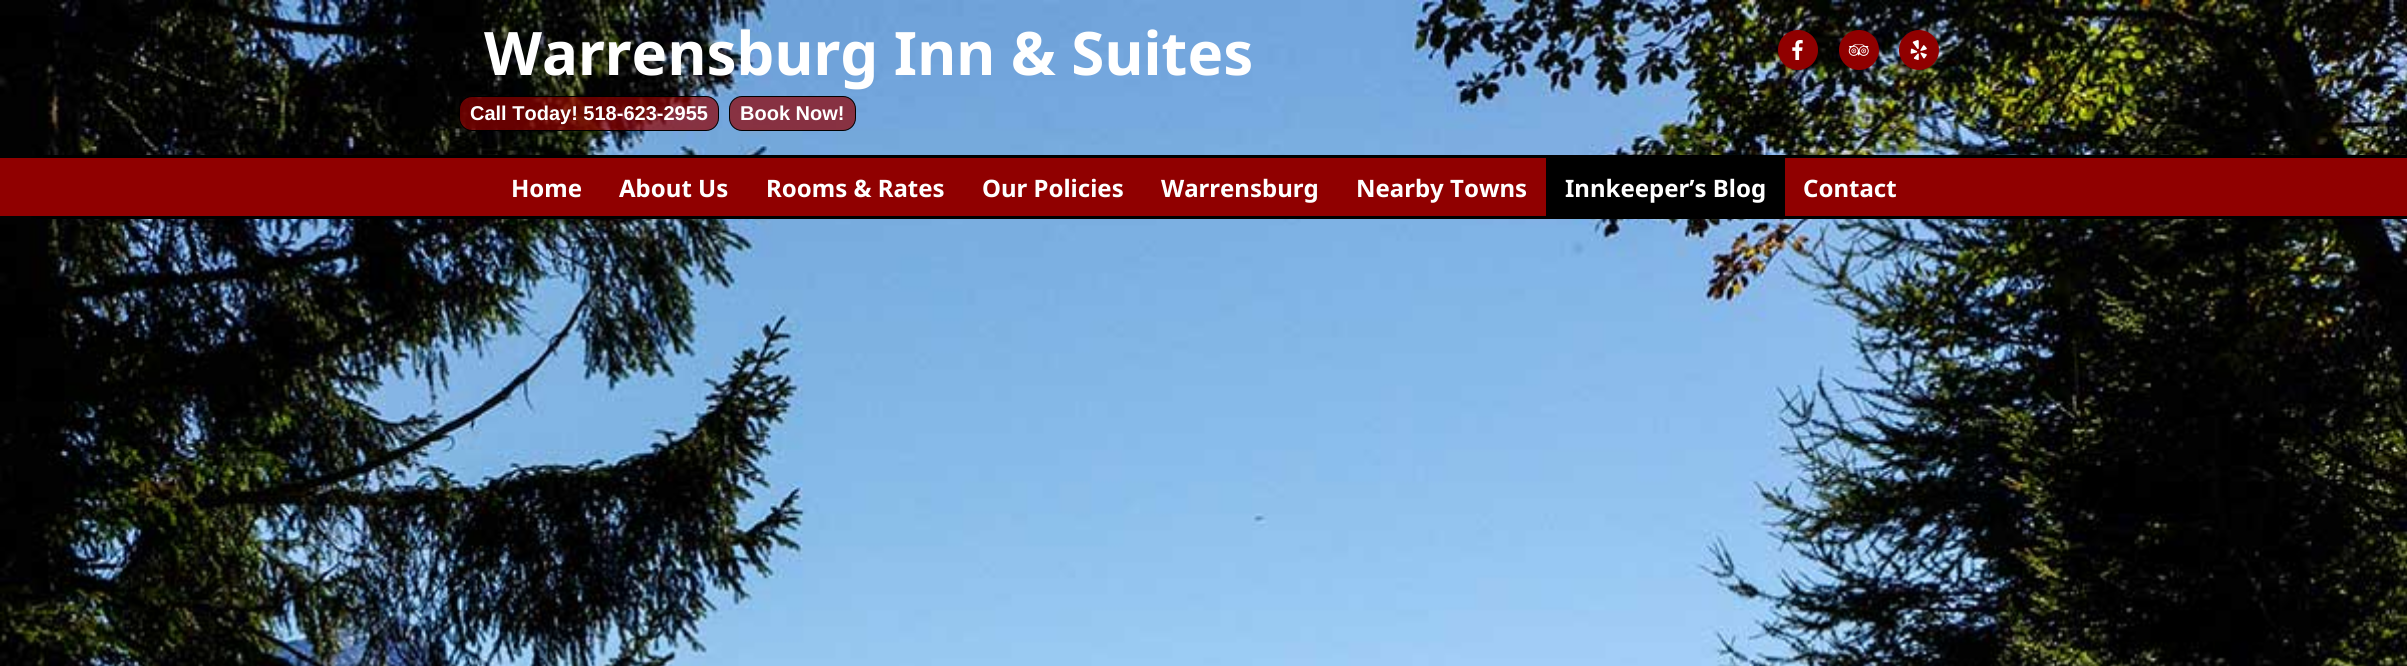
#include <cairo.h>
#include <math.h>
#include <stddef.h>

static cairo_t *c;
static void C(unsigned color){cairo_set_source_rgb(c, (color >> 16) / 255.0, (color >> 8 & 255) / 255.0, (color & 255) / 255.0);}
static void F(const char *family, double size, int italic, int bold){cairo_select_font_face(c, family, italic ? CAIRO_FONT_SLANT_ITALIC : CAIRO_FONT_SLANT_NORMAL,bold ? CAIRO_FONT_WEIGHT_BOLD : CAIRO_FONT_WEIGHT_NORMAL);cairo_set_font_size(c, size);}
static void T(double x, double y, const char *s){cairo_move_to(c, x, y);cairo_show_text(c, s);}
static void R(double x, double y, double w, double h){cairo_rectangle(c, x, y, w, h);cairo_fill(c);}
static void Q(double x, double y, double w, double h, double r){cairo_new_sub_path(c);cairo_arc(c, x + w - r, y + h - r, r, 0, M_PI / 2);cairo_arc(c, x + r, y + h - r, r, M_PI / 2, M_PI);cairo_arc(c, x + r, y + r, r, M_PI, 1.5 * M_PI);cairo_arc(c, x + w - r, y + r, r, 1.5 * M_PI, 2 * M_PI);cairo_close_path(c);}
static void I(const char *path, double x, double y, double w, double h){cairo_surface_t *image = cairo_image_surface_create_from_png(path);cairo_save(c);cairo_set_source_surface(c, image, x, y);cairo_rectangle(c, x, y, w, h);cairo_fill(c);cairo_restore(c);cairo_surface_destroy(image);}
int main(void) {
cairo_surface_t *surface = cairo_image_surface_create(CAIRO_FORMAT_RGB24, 2407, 666);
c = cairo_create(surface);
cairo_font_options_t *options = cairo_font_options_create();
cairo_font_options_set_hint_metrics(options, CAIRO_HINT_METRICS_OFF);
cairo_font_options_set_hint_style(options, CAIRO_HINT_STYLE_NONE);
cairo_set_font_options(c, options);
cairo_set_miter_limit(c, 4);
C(0xffffff);
cairo_paint(c);
I("1.png",0,0,2407,666);
F("Noto Sans",60,0,1);
C(0xffffff);
T(484,75,"Warrensburg Inn & Suites");
C(0x900000);
cairo_new_path(c);
cairo_arc(c,1798,50,20,0,2 * M_PI);
cairo_fill(c);
cairo_arc(c,1859,50,20,0,2 * M_PI);
cairo_fill(c);
cairo_arc(c,1919,50,20,0,2 * M_PI);
cairo_fill(c);
I("2.png",1792,40,11,20);
I("3.png",1848,44,21,12);
I("4.png",1910,40,17,20);
cairo_set_source_rgba(c,0.565,0,0,0.7);
Q(459.5,96.5,259,34,12.5);
cairo_fill_preserve(c);
C(0x000000);
cairo_set_line_width(c,1);
cairo_stroke(c);
F("Liberation Sans",20,0,1);
C(0xffffff);
T(470,120,"Call Today! 518-623-2955");
cairo_set_source_rgba(c,0.565,0,0,0.7);
Q(729.5,96.5,126,34,12.5);
cairo_fill_preserve(c);
C(0x000000);
cairo_stroke(c);
C(0xffffff);
T(740,120,"Book Now!");
C(0x900000);
R(0,158,2407,58);
C(0x000000);
R(43,155,2364,3);
R(36,216,2371,3);
F("Noto Sans",24,0,1);
C(0xffffff);
T(511,197,"Home");
T(619,197,"About Us");
T(766,197,"Rooms & Rates");
T(982,197,"Our Policies");
T(1161,197,"Warrensburg");
T(1356,197,"Nearby Towns");
C(0x000000);
R(1546,158,239,58);
C(0xffffff);
T(1565,197,"Innkeeper’s Blog");
T(1803,197,"Contact");
cairo_surface_write_to_png(surface, "o.png");
cairo_font_options_destroy(options);
cairo_destroy(c);
cairo_surface_destroy(surface);
return 0;
}
